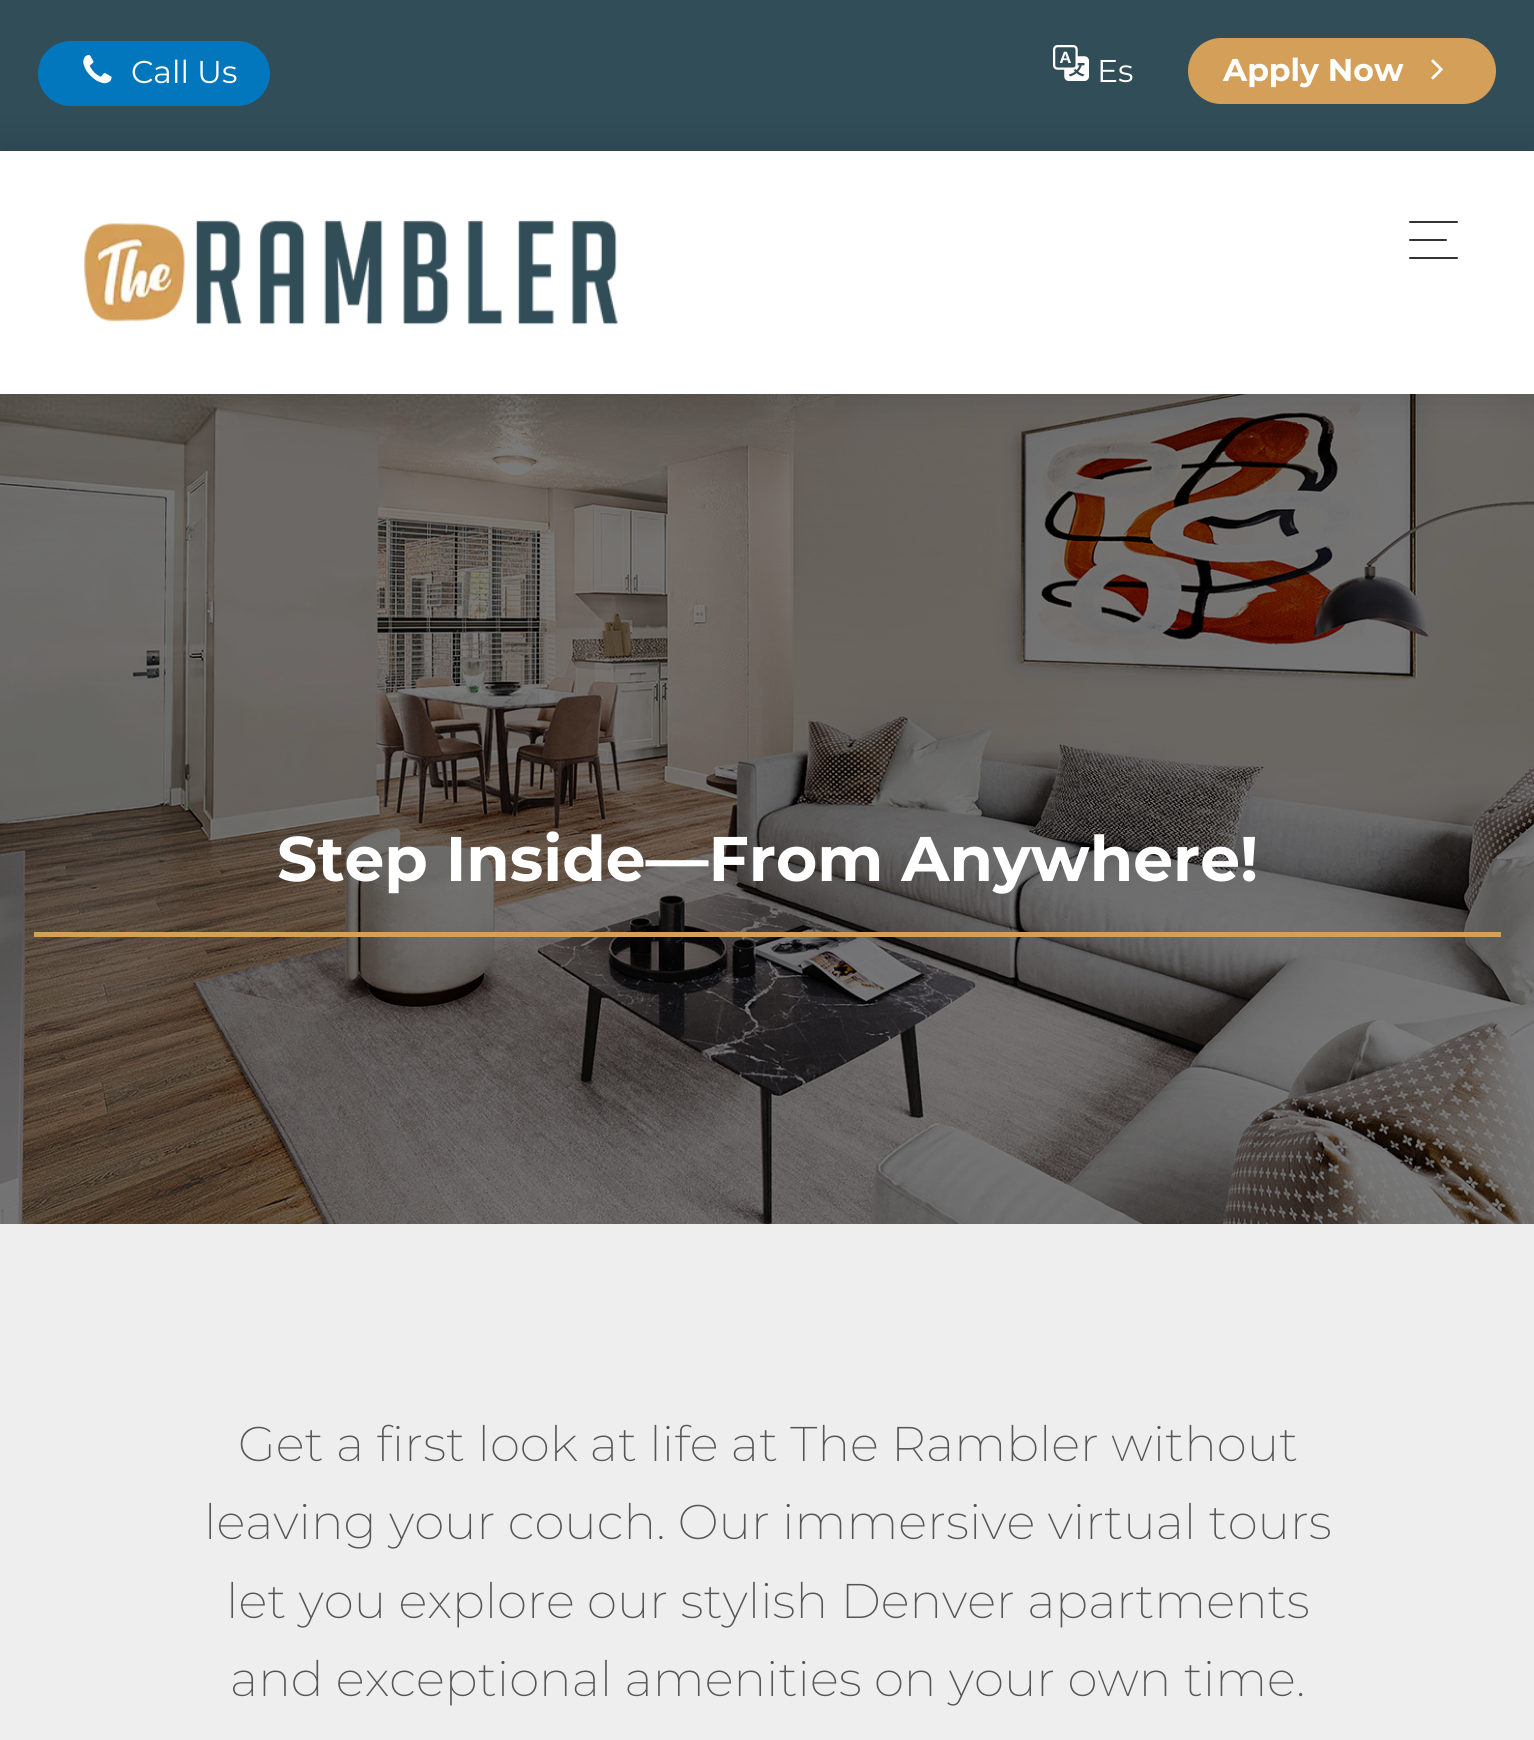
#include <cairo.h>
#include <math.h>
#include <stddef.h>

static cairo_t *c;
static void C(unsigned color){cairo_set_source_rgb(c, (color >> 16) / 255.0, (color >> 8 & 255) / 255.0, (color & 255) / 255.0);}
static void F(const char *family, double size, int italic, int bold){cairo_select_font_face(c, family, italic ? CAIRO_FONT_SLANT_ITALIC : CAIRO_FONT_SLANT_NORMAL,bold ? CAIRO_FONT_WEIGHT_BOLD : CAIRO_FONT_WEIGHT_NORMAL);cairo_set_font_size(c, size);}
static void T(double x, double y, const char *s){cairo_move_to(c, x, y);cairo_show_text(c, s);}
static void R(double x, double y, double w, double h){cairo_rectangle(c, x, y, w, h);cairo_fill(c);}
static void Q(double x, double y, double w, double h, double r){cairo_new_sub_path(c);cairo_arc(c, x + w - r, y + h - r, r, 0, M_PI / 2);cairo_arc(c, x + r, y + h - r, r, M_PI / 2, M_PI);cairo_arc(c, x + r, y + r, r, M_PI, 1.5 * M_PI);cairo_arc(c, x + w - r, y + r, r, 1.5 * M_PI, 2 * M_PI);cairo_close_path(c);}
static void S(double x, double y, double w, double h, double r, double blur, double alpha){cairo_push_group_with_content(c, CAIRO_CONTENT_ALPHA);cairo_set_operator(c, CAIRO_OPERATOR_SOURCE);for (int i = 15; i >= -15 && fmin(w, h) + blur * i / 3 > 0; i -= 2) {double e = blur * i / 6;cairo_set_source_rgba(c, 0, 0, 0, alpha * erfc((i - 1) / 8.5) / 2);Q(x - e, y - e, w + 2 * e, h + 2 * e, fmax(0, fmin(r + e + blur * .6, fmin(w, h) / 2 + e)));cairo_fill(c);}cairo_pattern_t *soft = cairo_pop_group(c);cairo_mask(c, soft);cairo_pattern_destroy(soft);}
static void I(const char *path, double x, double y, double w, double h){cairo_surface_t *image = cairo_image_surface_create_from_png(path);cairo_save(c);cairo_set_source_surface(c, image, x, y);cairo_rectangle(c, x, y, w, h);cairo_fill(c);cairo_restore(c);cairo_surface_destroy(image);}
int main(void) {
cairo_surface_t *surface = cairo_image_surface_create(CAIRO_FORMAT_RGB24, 1534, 1740);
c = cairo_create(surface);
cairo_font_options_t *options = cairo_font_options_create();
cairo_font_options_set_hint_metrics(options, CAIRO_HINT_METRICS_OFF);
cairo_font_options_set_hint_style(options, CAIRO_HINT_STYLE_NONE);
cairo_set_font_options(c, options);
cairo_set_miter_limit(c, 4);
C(0xeeeeee);
cairo_paint(c);
C(0x314d58);
R(0,0,1534,151);
C(0x0277bd);
Q(38,41,232,65,32.5);
cairo_fill(c);
I("1.png",83,55,29,29);
F("Montserrat",31.5,0,0);
C(0xffffff);
T(131,83,"Call Us");
I("2.png",1053,45,36,36);
T(1097,82,"Es");
C(0xd4a059);
Q(1188,38,308,66,33);
cairo_fill(c);
F("Montserrat",31.5,0,1);
C(0xffffff);
T(1223,81,"Apply Now");
I("3.png",1431,59,12,21);
I("5.png",0,394,1534,830);
C(0x000000);
S(0,151,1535,243,0,22.5,.15);
C(0xffffff);
R(0,151,1534,243);
I("4.png",84,220,534,105);
C(0x333333);
Q(1409,221,49,2,1);
cairo_fill(c);
Q(1409,239,38,2,1);
cairo_fill(c);
Q(1409,257,49,2,1);
cairo_fill(c);
F("Montserrat",63,0,1);
C(0xffffff);
T(277,881,"Step Inside—From Anywhere!");
C(0xd4a059);
R(34,932,1467,5);
F("Montserrat ExtraLight",48.7,0,0);
C(0x555555);
T(238,1461,"Get a first look at life at The Rambler without");
T(204,1539,"leaving your couch. Our immersive virtual tours");
T(226,1618,"let you explore our stylish Denver apartments");
T(230,1696,"and exceptional amenities on your own time.");
cairo_surface_write_to_png(surface, "o.png");
cairo_font_options_destroy(options);
cairo_destroy(c);
cairo_surface_destroy(surface);
return 0;
}
